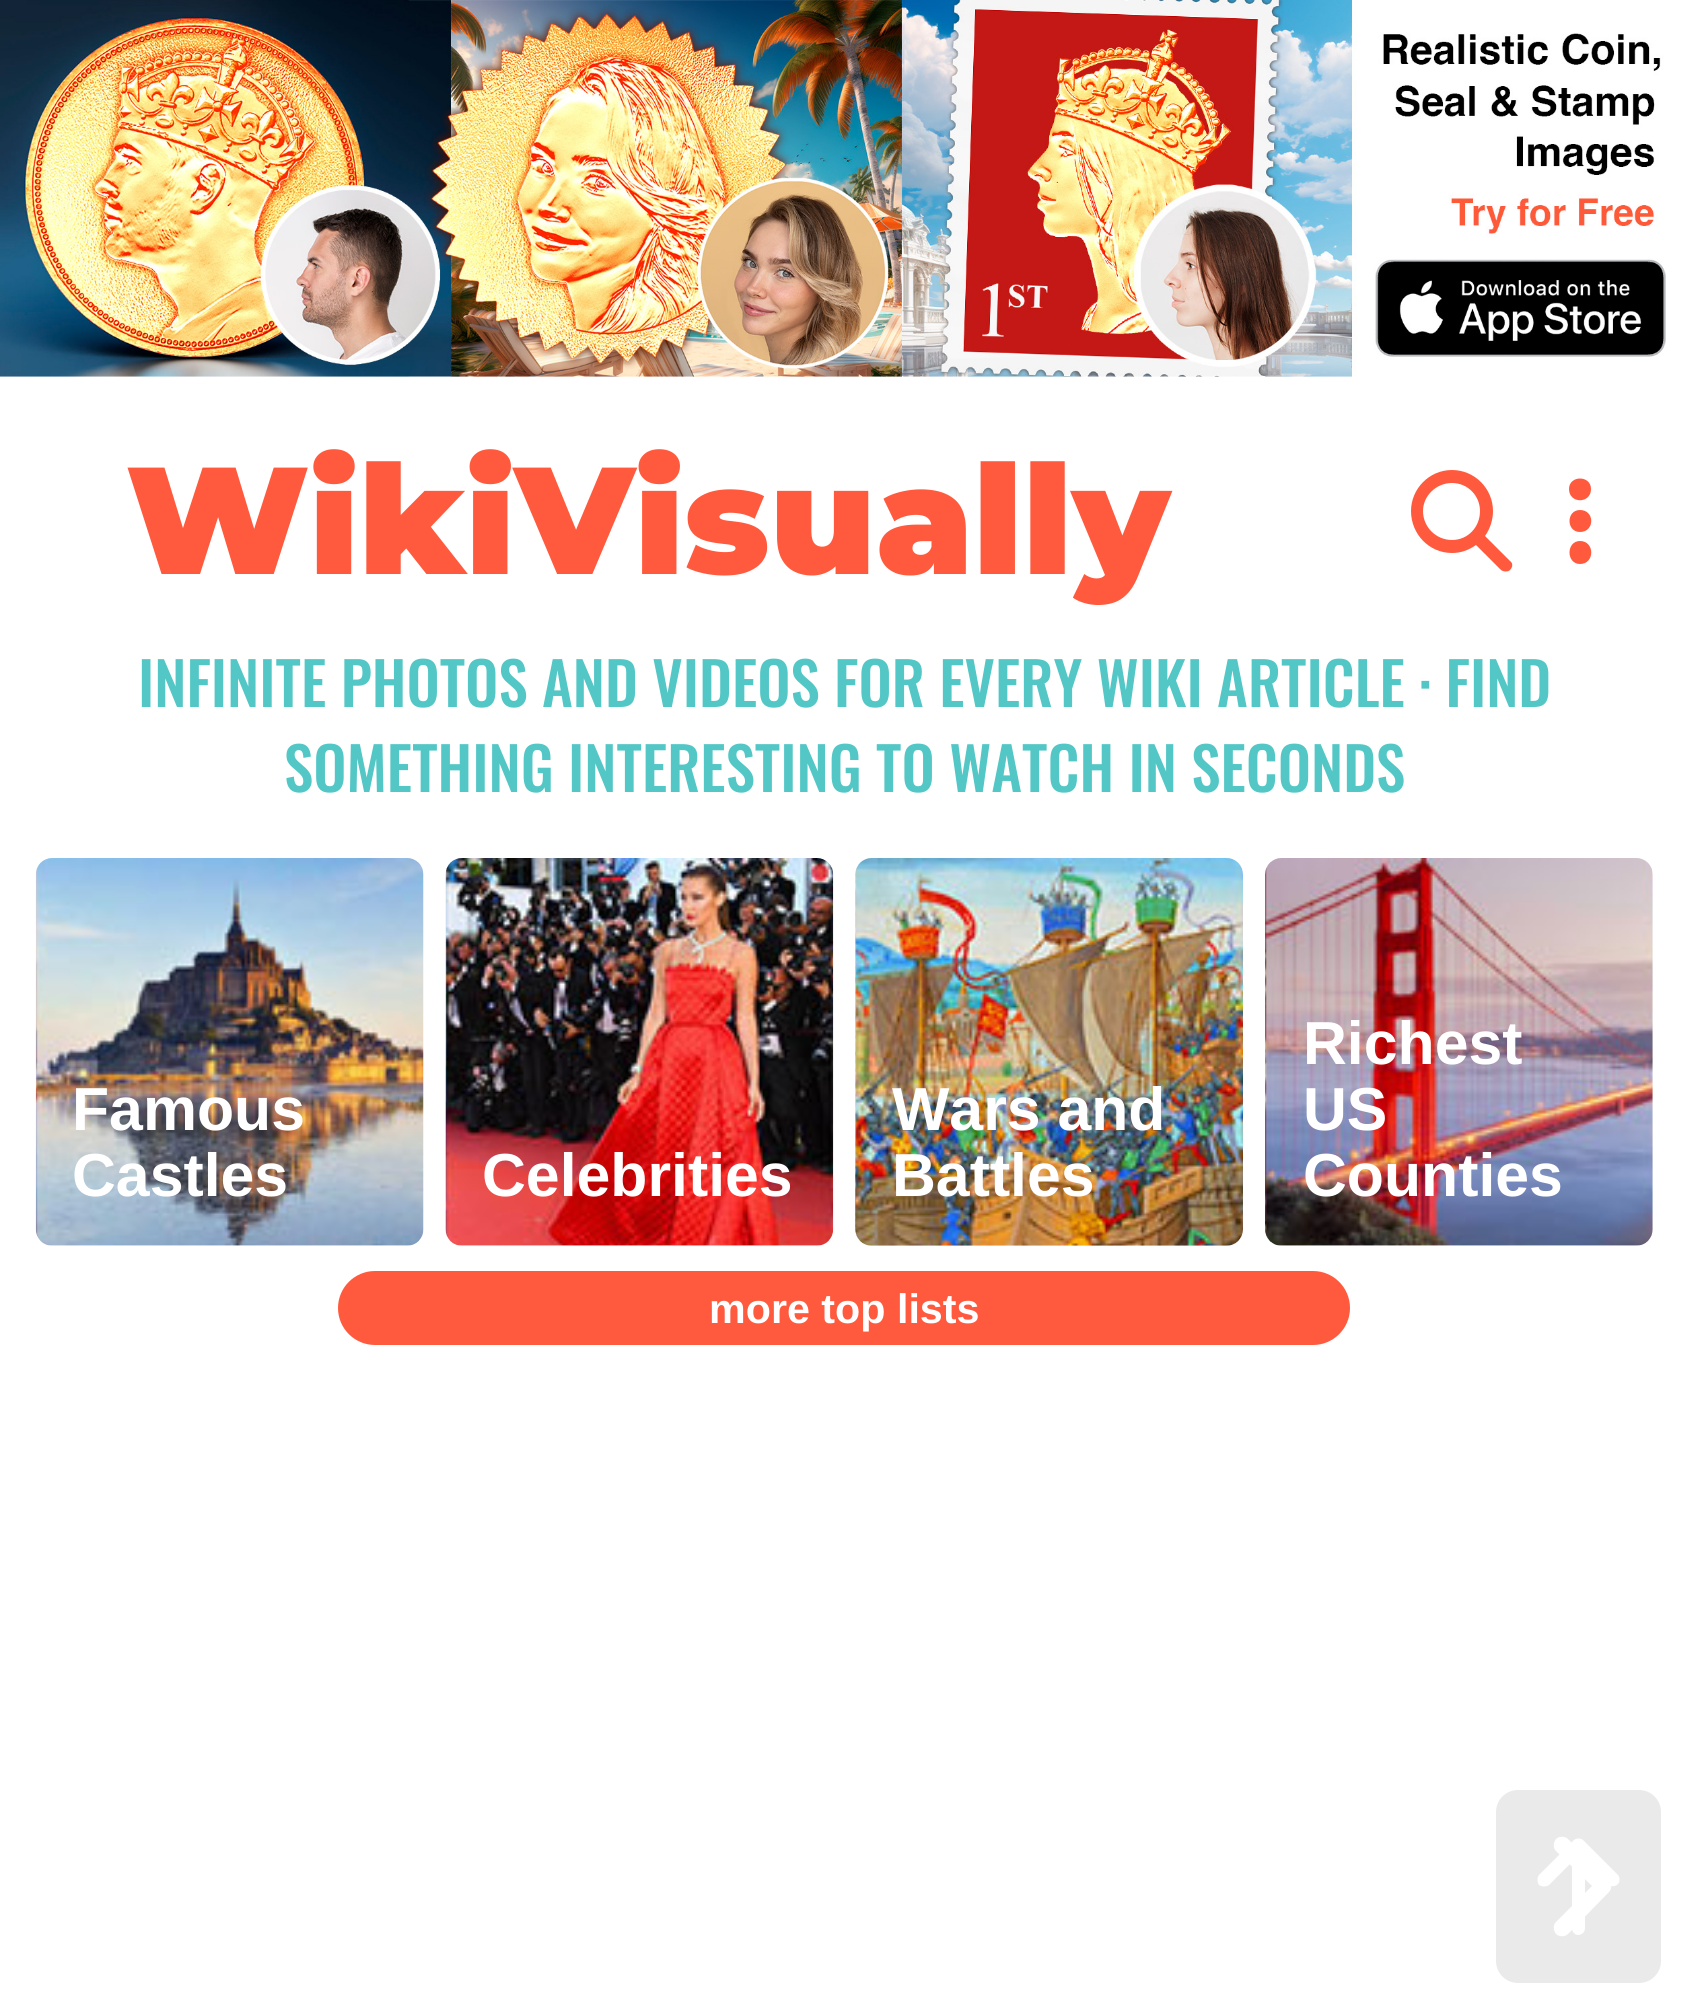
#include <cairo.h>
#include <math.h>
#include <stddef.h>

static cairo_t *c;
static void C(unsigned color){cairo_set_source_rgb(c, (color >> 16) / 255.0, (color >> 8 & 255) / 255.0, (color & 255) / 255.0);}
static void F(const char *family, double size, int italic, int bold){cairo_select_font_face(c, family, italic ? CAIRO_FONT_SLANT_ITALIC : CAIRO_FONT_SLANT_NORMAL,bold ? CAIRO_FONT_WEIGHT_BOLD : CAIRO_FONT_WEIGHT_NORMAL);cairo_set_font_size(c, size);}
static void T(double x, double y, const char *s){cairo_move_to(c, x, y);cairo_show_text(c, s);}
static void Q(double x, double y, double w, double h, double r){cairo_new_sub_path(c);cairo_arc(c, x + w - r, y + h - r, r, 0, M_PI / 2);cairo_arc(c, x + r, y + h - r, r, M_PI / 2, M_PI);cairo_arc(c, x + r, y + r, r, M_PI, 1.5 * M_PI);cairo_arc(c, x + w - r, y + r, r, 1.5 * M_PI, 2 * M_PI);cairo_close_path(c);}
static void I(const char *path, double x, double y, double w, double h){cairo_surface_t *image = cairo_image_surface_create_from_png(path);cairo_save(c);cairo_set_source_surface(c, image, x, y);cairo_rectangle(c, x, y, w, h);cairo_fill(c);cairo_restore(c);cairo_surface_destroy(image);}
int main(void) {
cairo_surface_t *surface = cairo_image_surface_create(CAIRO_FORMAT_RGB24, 1688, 2008);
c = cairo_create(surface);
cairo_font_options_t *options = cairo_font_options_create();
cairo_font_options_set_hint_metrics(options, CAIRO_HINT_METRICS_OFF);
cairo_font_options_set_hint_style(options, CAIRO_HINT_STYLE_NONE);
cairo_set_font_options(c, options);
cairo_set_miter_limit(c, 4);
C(0xffffff);
cairo_paint(c);
I("1.png",0,0,1666,377);
F("Montserrat Thin",152,0,0);
C(0xff5a3d);
T(126,574,"WikiVisually");
cairo_new_path(c);
cairo_move_to(c,1493,511);
cairo_curve_to(c,1493,520,1490,529,1485,536);
cairo_line_to(c,1510,561);
cairo_curve_to(c,1513,563,1513,567,1510,570);
cairo_curve_to(c,1508,572,1504,572,1501,570);
cairo_line_to(c,1476,545);
cairo_curve_to(c,1469,550,1461,553,1452,553);
cairo_curve_to(c,1429,553,1411,534,1411,511);
cairo_curve_to(c,1411,489,1429,470,1452,470);
cairo_curve_to(c,1475,470,1493,489,1493,511);
cairo_close_path(c);
cairo_move_to(c,1452,540);
cairo_curve_to(c,1468,540,1480,527,1480,511);
cairo_curve_to(c,1480,496,1468,483,1452,483);
cairo_curve_to(c,1436,483,1423,496,1423,511);
cairo_curve_to(c,1423,527,1436,540,1452,540);
cairo_close_path(c);
cairo_fill(c);
cairo_new_path(c);
cairo_move_to(c,1580,541);
cairo_curve_to(c,1566,541,1566,564,1580,564);
cairo_curve_to(c,1595,564,1595,541,1580,541);
cairo_close_path(c);
cairo_move_to(c,1580,510);
cairo_curve_to(c,1566,510,1566,532,1580,532);
cairo_curve_to(c,1595,532,1595,510,1580,510);
cairo_close_path(c);
cairo_move_to(c,1591,489);
cairo_curve_to(c,1591,475,1569,475,1569,489);
cairo_curve_to(c,1569,504,1591,504,1591,489);
cairo_close_path(c);
cairo_fill(c);
F("Oswald Medium",59.1,0,0);
C(0x53c6c6);
T(138,707,"INFINITE PHOTOS AND VIDEOS FOR EVERY WIKI ARTICLE · FIND");
T(284,792,"SOMETHING INTERESTING TO WATCH IN SECONDS");
I("2.png",35,858,389,388);
F("Liberation Sans",60.75,0,1);
C(0xffffff);
T(72,1130,"Famous");
T(72,1196,"Castles");
I("3.png",445,858,389,388);
T(482,1196,"Celebrities");
I("4.png",855,858,388,388);
T(892,1130,"Wars and");
T(892,1196,"Battles");
I("5.png",1265,858,388,388);
T(1303,1064,"Richest");
T(1303,1130,"US");
T(1303,1196,"Counties");
C(0xff5a3d);
Q(338,1271,1012,74,37);
cairo_fill(c);
F("Liberation Sans",41.25,0,1);
C(0xffffff);
T(709,1323,"more top lists");
C(0xeaeaea);
Q(1496,1790,165,193,22);
cairo_fill(c);
C(0xffffff);
cairo_new_path(c);
cairo_move_to(c,1609,1881);
cairo_curve_to(c,1612,1884,1612,1889,1609,1892);
cairo_line_to(c,1568,1934);
cairo_curve_to(c,1565,1937,1559,1937,1556,1934);
cairo_curve_to(c,1553,1930,1553,1925,1556,1922);
cairo_line_to(c,1592,1886);
cairo_line_to(c,1556,1851);
cairo_curve_to(c,1553,1848,1553,1843,1556,1839);
cairo_curve_to(c,1559,1836,1565,1836,1568,1839);
cairo_close_path(c);
cairo_fill(c);
cairo_new_path(c);
cairo_move_to(c,1583,1840);
cairo_curve_to(c,1581,1838,1576,1838,1574,1840);
cairo_line_to(c,1539,1875);
cairo_curve_to(c,1537,1877,1537,1882,1539,1885);
cairo_curve_to(c,1542,1887,1546,1887,1549,1885);
cairo_line_to(c,1572,1862);
cairo_line_to(c,1572,1928);
cairo_curve_to(c,1572,1932,1575,1935,1578,1935);
cairo_curve_to(c,1582,1935,1585,1932,1585,1928);
cairo_line_to(c,1585,1862);
cairo_line_to(c,1608,1884);
cairo_curve_to(c,1611,1887,1615,1887,1618,1884);
cairo_curve_to(c,1620,1882,1620,1877,1618,1875);
cairo_close_path(c);
cairo_fill(c);
cairo_surface_write_to_png(surface, "o.png");
cairo_font_options_destroy(options);
cairo_destroy(c);
cairo_surface_destroy(surface);
return 0;
}
